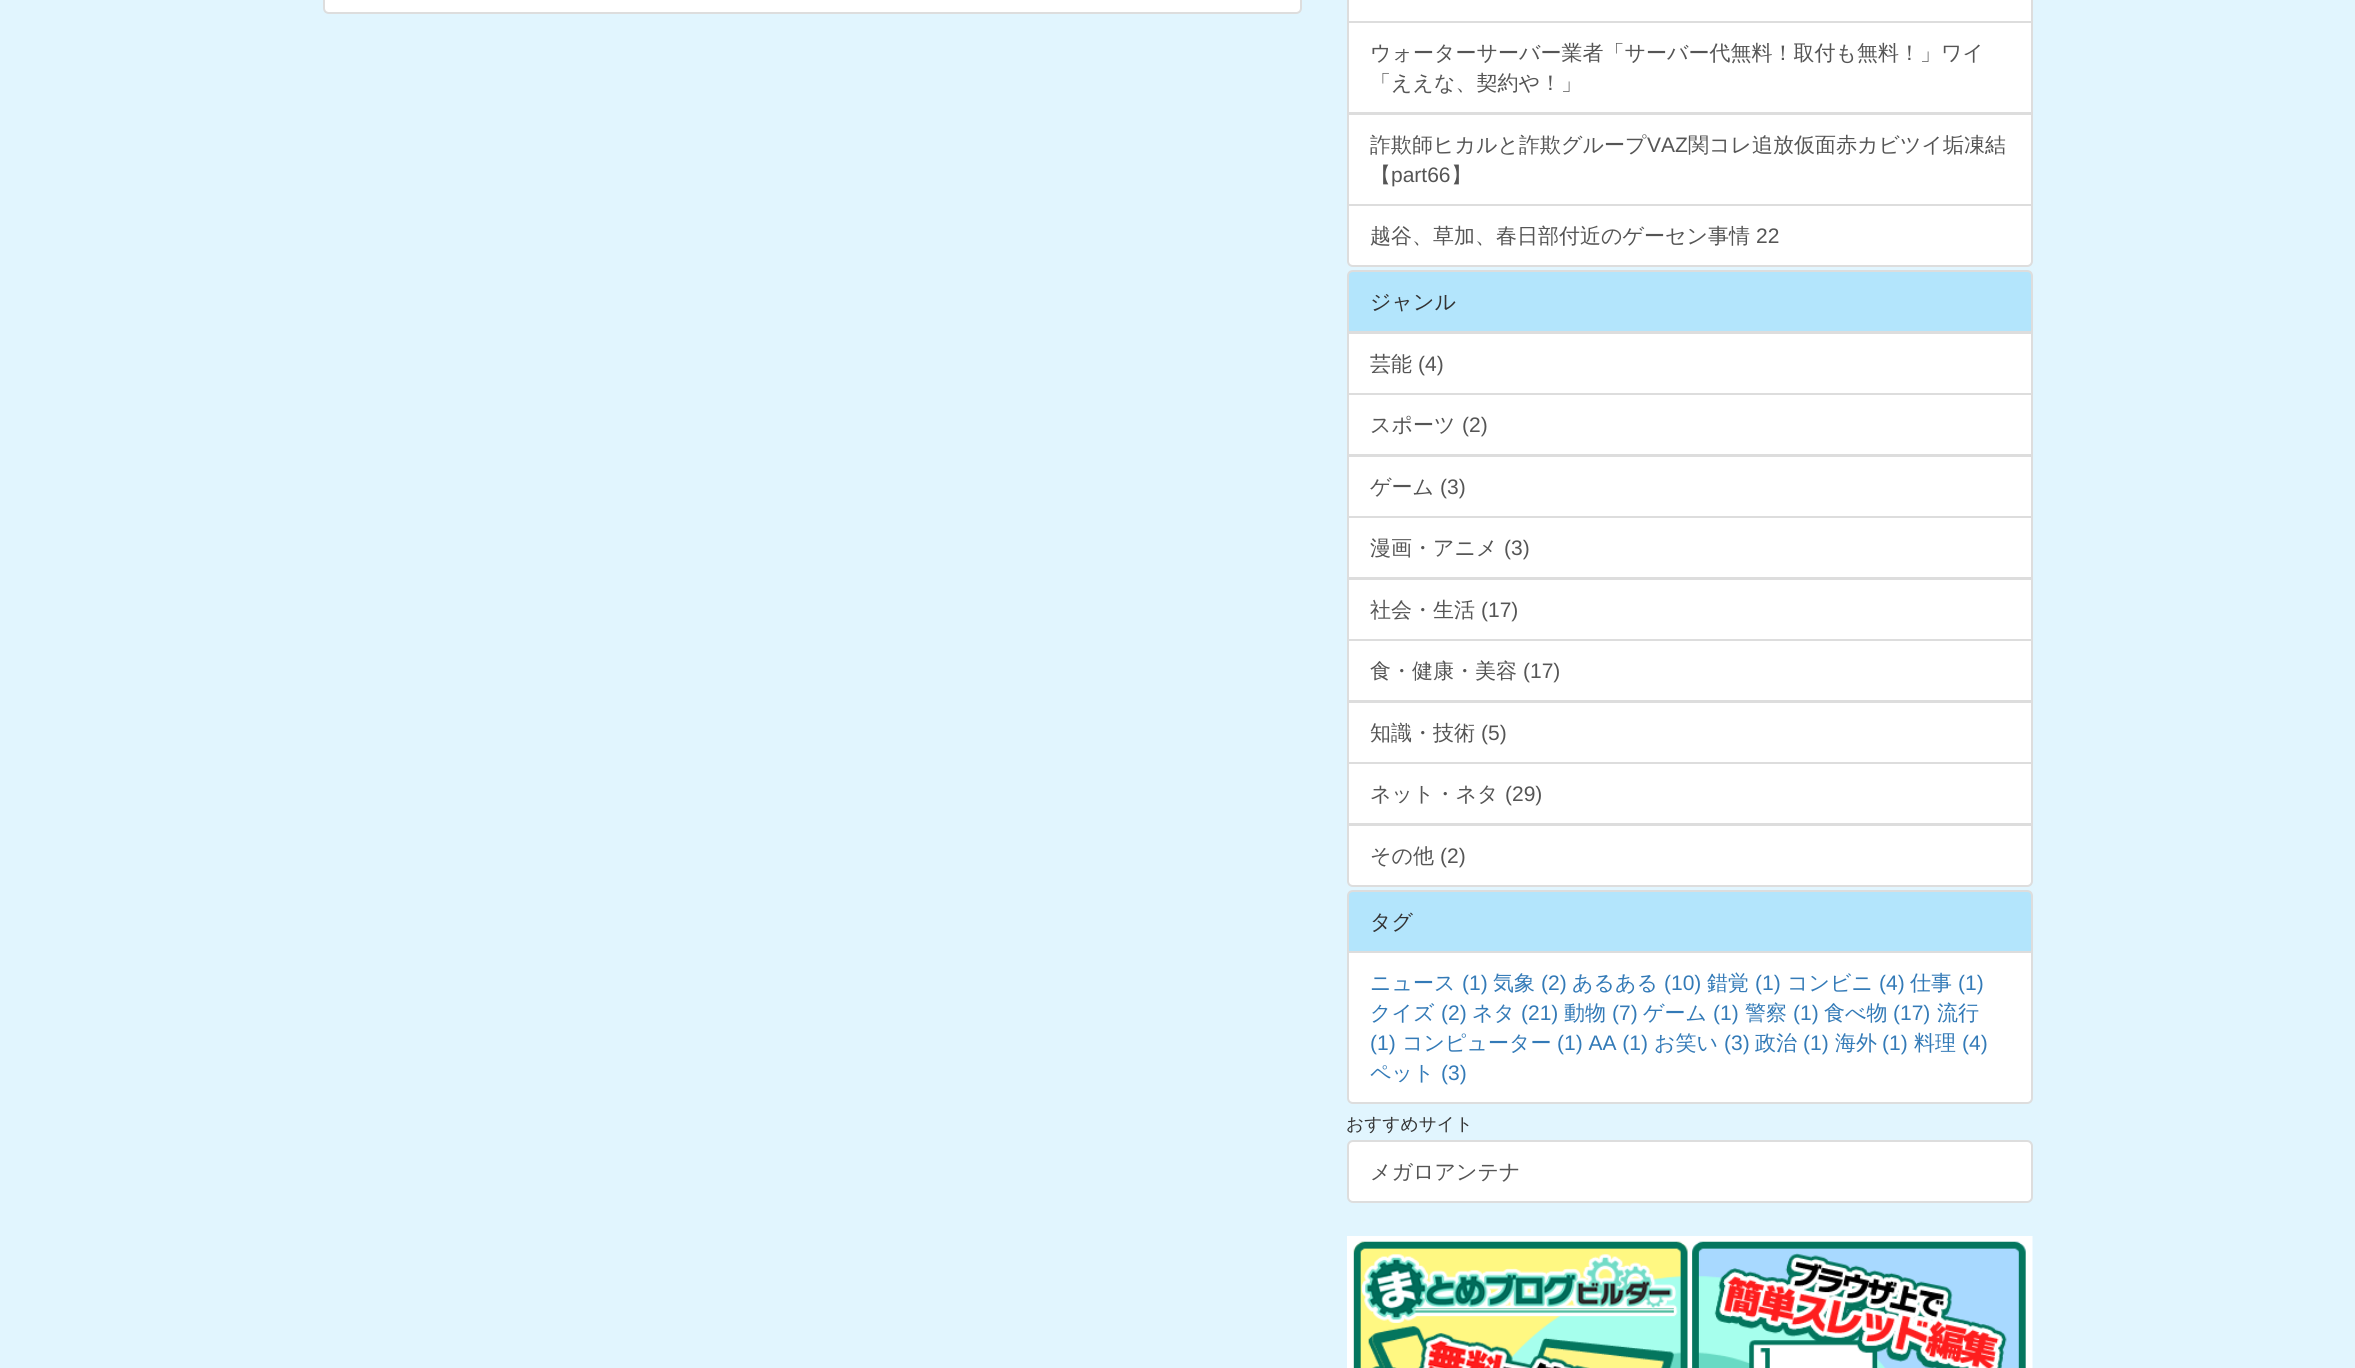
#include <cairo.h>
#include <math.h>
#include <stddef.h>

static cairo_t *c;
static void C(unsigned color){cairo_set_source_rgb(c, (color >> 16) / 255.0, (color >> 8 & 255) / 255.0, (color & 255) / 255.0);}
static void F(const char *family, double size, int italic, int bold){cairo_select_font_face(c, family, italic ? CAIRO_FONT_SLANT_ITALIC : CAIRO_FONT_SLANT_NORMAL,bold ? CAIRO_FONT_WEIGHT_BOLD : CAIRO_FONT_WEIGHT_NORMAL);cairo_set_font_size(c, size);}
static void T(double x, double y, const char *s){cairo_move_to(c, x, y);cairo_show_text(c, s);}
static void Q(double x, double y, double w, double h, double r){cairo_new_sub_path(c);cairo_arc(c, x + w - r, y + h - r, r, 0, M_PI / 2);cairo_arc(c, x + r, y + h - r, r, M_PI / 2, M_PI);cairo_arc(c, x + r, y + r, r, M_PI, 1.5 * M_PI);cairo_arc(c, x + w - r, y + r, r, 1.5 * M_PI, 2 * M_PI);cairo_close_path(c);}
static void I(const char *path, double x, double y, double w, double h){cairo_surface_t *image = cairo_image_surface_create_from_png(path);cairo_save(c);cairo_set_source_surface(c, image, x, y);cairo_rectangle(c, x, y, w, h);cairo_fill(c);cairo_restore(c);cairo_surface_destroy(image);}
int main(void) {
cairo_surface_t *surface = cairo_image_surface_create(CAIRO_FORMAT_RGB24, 2355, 1368);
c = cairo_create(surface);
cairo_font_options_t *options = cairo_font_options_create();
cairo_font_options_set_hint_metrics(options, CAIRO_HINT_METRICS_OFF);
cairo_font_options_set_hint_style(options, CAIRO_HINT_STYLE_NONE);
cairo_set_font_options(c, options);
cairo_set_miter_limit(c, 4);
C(0xe1f5fe);
cairo_paint(c);
C(0xffffff);
cairo_new_path(c);
cairo_move_to(c,324,-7);
cairo_line_to(c,1301,-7);
cairo_line_to(c,1301,8);
cairo_curve_to(c,1301,11,1299,13,1296,13);
cairo_line_to(c,329,13);
cairo_curve_to(c,326,13,324,11,324,8);
cairo_close_path(c);
cairo_fill_preserve(c);
C(0xdddddd);
cairo_stroke(c);
C(0xffffff);
cairo_rectangle(c,1348,-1,684,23);
cairo_fill_preserve(c);
C(0xdddddd);
cairo_stroke(c);
C(0xffffff);
cairo_rectangle(c,1348,22,684,91);
cairo_fill_preserve(c);
C(0xdddddd);
cairo_stroke(c);
F("WenQuanYi Zen Hei Medium",21,0,0);
C(0x555555);
T(1370,60,"ウォーターサーバー業者「サーバー代無料！取付も無料！」ワイ");
T(1370,90,"「ええな、契約や！」");
C(0xffffff);
cairo_rectangle(c,1348,114,684,91);
cairo_fill_preserve(c);
C(0xdddddd);
cairo_stroke(c);
C(0x555555);
T(1370,152,"詐欺師ヒカルと詐欺グループ");
F("Liberation Sans",21,0,0);
T(1647,152,"VAZ");
F("WenQuanYi Zen Hei Medium",21,0,0);
T(1688,152,"関コレ追放仮面赤カビツイ垢凍結");
T(1370,182,"【");
F("Liberation Sans",21,0,0);
T(1391,182,"part66");
F("WenQuanYi Zen Hei Medium",21,0,0);
T(1451,182,"】");
C(0xffffff);
cairo_new_path(c);
cairo_move_to(c,1348,205);
cairo_line_to(c,2032,205);
cairo_line_to(c,2032,261);
cairo_curve_to(c,2032,264,2030,266,2027,266);
cairo_line_to(c,1353,266);
cairo_curve_to(c,1350,266,1348,264,1348,261);
cairo_close_path(c);
cairo_fill_preserve(c);
C(0xdddddd);
cairo_stroke(c);
C(0x555555);
T(1370,243,"越谷、草加、春日部付近のゲーセン事情");
F("Liberation Sans",21,0,0);
T(1756,243,"22");
C(0xb3e5fc);
cairo_new_path(c);
cairo_move_to(c,1353,271);
cairo_line_to(c,2027,271);
cairo_curve_to(c,2030,271,2032,273,2032,276);
cairo_line_to(c,2032,332);
cairo_line_to(c,1348,332);
cairo_line_to(c,1348,276);
cairo_curve_to(c,1348,273,1350,271,1353,271);
cairo_close_path(c);
cairo_fill_preserve(c);
C(0xdddddd);
cairo_stroke(c);
F("WenQuanYi Zen Hei Medium",21,0,0);
C(0x333333);
T(1370,309,"ジャンル");
C(0xffffff);
cairo_rectangle(c,1348,333,684,61);
cairo_fill_preserve(c);
C(0xdddddd);
cairo_stroke(c);
C(0x555555);
T(1370,371,"芸能");
F("Liberation Sans",21,0,0);
T(1418,371,"(4)");
C(0xffffff);
cairo_rectangle(c,1348,394,684,61);
cairo_fill_preserve(c);
C(0xdddddd);
cairo_stroke(c);
F("WenQuanYi Zen Hei Medium",21,0,0);
C(0x555555);
T(1370,432,"スポーツ");
F("Liberation Sans",21,0,0);
T(1462,432,"(2)");
C(0xffffff);
cairo_rectangle(c,1348,456,684,61);
cairo_fill_preserve(c);
C(0xdddddd);
cairo_stroke(c);
F("WenQuanYi Zen Hei Medium",21,0,0);
C(0x555555);
T(1370,494,"ゲーム");
F("Liberation Sans",21,0,0);
T(1440,494,"(3)");
C(0xffffff);
cairo_rectangle(c,1348,517,684,61);
cairo_fill_preserve(c);
C(0xdddddd);
cairo_stroke(c);
F("WenQuanYi Zen Hei Medium",21,0,0);
C(0x555555);
T(1370,555,"漫画・アニメ");
F("Liberation Sans",21,0,0);
T(1504,555,"(3)");
C(0xffffff);
cairo_rectangle(c,1348,579,684,61);
cairo_fill_preserve(c);
C(0xdddddd);
cairo_stroke(c);
F("WenQuanYi Zen Hei Medium",21,0,0);
C(0x555555);
T(1370,617,"社会・生活");
F("Liberation Sans",21,0,0);
T(1481,617,"(17)");
C(0xffffff);
cairo_rectangle(c,1348,640,684,61);
cairo_fill_preserve(c);
C(0xdddddd);
cairo_stroke(c);
F("WenQuanYi Zen Hei Medium",21,0,0);
C(0x555555);
T(1370,678,"食・健康・美容");
F("Liberation Sans",21,0,0);
T(1523,678,"(17)");
C(0xffffff);
cairo_rectangle(c,1348,702,684,61);
cairo_fill_preserve(c);
C(0xdddddd);
cairo_stroke(c);
F("WenQuanYi Zen Hei Medium",21,0,0);
C(0x555555);
T(1370,740,"知識・技術");
F("Liberation Sans",21,0,0);
T(1481,740,"(5)");
C(0xffffff);
cairo_rectangle(c,1348,763,684,61);
cairo_fill_preserve(c);
C(0xdddddd);
cairo_stroke(c);
F("WenQuanYi Zen Hei Medium",21,0,0);
C(0x555555);
T(1370,801,"ネット・ネタ");
F("Liberation Sans",21,0,0);
T(1505,801,"(29)");
C(0xffffff);
cairo_new_path(c);
cairo_move_to(c,1348,825);
cairo_line_to(c,2032,825);
cairo_line_to(c,2032,881);
cairo_curve_to(c,2032,884,2030,886,2027,886);
cairo_line_to(c,1353,886);
cairo_curve_to(c,1350,886,1348,884,1348,881);
cairo_close_path(c);
cairo_fill_preserve(c);
C(0xdddddd);
cairo_stroke(c);
F("WenQuanYi Zen Hei Medium",21,0,0);
C(0x555555);
T(1370,863,"その他");
F("Liberation Sans",21,0,0);
T(1440,863,"(2)");
C(0xb3e5fc);
cairo_new_path(c);
cairo_move_to(c,1353,891);
cairo_line_to(c,2027,891);
cairo_curve_to(c,2030,891,2032,893,2032,896);
cairo_line_to(c,2032,952);
cairo_line_to(c,1348,952);
cairo_line_to(c,1348,896);
cairo_curve_to(c,1348,893,1350,891,1353,891);
cairo_close_path(c);
cairo_fill_preserve(c);
C(0xdddddd);
cairo_stroke(c);
F("WenQuanYi Zen Hei Medium",21,0,0);
C(0x333333);
T(1370,929,"タグ");
C(0xffffff);
cairo_new_path(c);
cairo_move_to(c,1348,952);
cairo_line_to(c,2032,952);
cairo_line_to(c,2032,1098);
cairo_curve_to(c,2032,1101,2030,1103,2027,1103);
cairo_line_to(c,1353,1103);
cairo_curve_to(c,1350,1103,1348,1101,1348,1098);
cairo_close_path(c);
cairo_fill_preserve(c);
C(0xdddddd);
cairo_stroke(c);
C(0x337ab7);
T(1370,990,"ニュース");
F("Liberation Sans",21,0,0);
T(1462,990,"(1)");
F("WenQuanYi Zen Hei Medium",21,0,0);
T(1493,990,"気象");
F("Liberation Sans",21,0,0);
T(1541,990,"(2)");
F("WenQuanYi Zen Hei Medium",21,0,0);
T(1572,990,"あるある");
F("Liberation Sans",21,0,0);
T(1664,990,"(10)");
F("WenQuanYi Zen Hei Medium",21,0,0);
T(1707,990,"錯覚");
F("Liberation Sans",21,0,0);
T(1755,990,"(1)");
F("WenQuanYi Zen Hei Medium",21,0,0);
T(1787,990,"コンビニ");
F("Liberation Sans",21,0,0);
T(1879,990,"(4)");
F("WenQuanYi Zen Hei Medium",21,0,0);
T(1910,990,"仕事");
F("Liberation Sans",21,0,0);
T(1958,990,"(1)");
F("WenQuanYi Zen Hei Medium",21,0,0);
T(1370,1020,"クイズ");
F("Liberation Sans",21,0,0);
T(1441,1020,"(2)");
F("WenQuanYi Zen Hei Medium",21,0,0);
T(1472,1020,"ネタ");
F("Liberation Sans",21,0,0);
T(1521,1020,"(21)");
F("WenQuanYi Zen Hei Medium",21,0,0);
T(1564,1020,"動物");
F("Liberation Sans",21,0,0);
T(1612,1020,"(7)");
F("WenQuanYi Zen Hei Medium",21,0,0);
T(1643,1020,"ゲーム");
F("Liberation Sans",21,0,0);
T(1713,1020,"(1)");
F("WenQuanYi Zen Hei Medium",21,0,0);
T(1745,1020,"警察");
F("Liberation Sans",21,0,0);
T(1793,1020,"(1)");
F("WenQuanYi Zen Hei Medium",21,0,0);
T(1824,1020,"食べ物");
F("Liberation Sans",21,0,0);
T(1893,1020,"(17)");
F("WenQuanYi Zen Hei Medium",21,0,0);
T(1937,1020,"流行");
F("Liberation Sans",21,0,0);
T(1370,1050,"(1)");
F("WenQuanYi Zen Hei Medium",21,0,0);
T(1402,1050,"コンピューター");
F("Liberation Sans",21,0,0);
T(1557,1050,"(1) AA (1)");
F("WenQuanYi Zen Hei Medium",21,0,0);
T(1654,1050,"お笑い");
F("Liberation Sans",21,0,0);
T(1724,1050,"(3)");
F("WenQuanYi Zen Hei Medium",21,0,0);
T(1755,1050,"政治");
F("Liberation Sans",21,0,0);
T(1803,1050,"(1)");
F("WenQuanYi Zen Hei Medium",21,0,0);
T(1835,1050,"海外");
F("Liberation Sans",21,0,0);
T(1882,1050,"(1)");
F("WenQuanYi Zen Hei Medium",21,0,0);
T(1914,1050,"料理");
F("Liberation Sans",21,0,0);
T(1962,1050,"(4)");
F("WenQuanYi Zen Hei Medium",21,0,0);
T(1370,1080,"ペット");
F("Liberation Sans",21,0,0);
T(1441,1080,"(3)");
F("WenQuanYi Zen Hei Medium",17.75,0,0);
C(0x333333);
T(1346,1130,"おすすめサイト");
C(0xffffff);
Q(1348,1141,684,61,5);
cairo_fill_preserve(c);
C(0xdddddd);
cairo_stroke(c);
F("WenQuanYi Zen Hei Medium",21,0,0);
C(0x555555);
T(1370,1179,"メガロアンテナ");
I("1.png",1347,1236,686,132);
cairo_surface_write_to_png(surface, "o.png");
cairo_font_options_destroy(options);
cairo_destroy(c);
cairo_surface_destroy(surface);
return 0;
}
